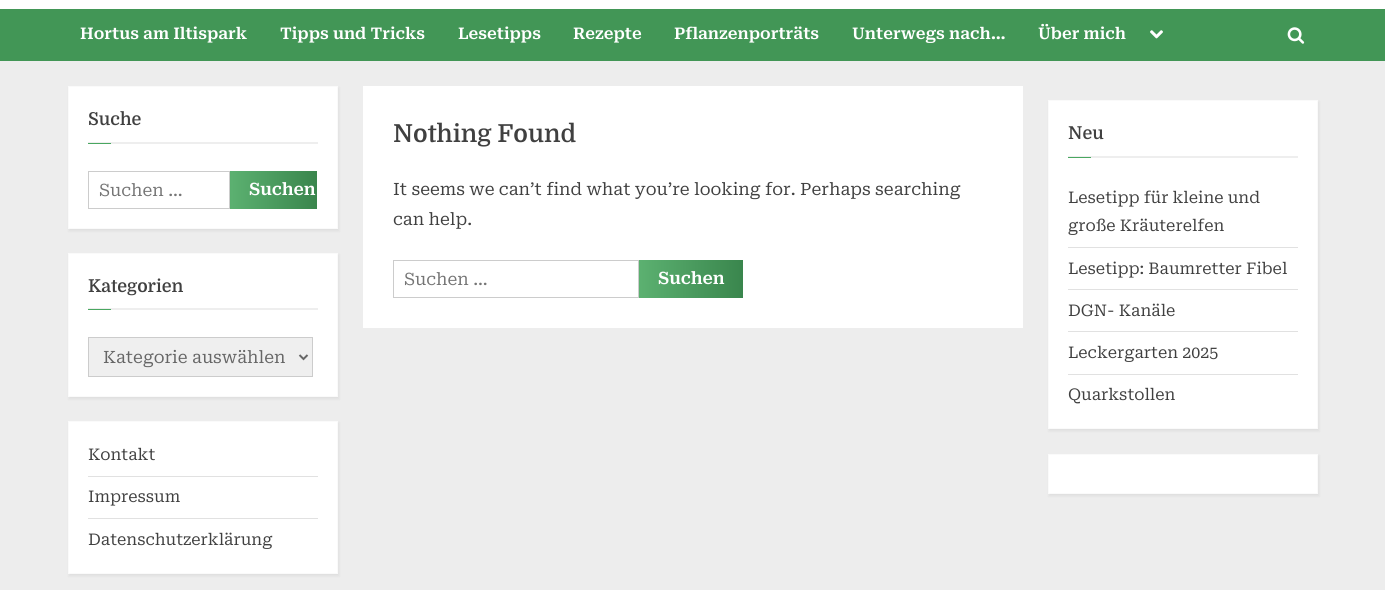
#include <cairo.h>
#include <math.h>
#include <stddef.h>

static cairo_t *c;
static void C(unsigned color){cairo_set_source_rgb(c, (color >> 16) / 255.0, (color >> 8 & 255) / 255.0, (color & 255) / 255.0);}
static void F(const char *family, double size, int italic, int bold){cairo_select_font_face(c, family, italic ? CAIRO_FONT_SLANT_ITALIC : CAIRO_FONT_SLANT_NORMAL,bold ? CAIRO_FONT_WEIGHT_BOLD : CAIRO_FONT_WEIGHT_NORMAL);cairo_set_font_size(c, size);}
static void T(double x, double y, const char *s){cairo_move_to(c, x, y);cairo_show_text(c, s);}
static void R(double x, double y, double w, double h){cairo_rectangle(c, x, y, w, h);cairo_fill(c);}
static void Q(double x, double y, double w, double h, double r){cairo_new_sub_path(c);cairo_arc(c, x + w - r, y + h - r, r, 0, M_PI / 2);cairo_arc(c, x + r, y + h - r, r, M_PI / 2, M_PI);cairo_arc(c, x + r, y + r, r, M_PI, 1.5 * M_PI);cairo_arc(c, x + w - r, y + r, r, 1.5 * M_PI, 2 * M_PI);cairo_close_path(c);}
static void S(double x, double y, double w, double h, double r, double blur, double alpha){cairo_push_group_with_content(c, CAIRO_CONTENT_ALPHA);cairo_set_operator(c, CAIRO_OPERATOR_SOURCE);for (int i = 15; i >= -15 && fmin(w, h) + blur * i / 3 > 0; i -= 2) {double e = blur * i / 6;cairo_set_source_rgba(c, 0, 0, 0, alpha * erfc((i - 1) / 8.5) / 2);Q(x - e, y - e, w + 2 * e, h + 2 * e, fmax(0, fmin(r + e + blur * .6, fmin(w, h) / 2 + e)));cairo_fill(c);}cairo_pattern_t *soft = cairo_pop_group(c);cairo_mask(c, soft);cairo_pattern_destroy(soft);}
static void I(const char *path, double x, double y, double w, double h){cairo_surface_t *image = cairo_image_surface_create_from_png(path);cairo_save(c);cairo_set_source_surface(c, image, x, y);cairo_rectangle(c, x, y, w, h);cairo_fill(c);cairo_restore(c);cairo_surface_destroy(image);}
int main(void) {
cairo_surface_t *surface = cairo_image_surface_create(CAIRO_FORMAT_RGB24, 1385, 590);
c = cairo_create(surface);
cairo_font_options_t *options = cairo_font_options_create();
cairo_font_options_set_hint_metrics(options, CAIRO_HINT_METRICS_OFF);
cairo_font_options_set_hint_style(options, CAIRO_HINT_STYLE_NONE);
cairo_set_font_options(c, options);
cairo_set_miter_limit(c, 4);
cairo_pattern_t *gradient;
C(0xededed);
cairo_paint(c);
C(0xffffff);
R(0,0,1385,9);
C(0x429656);
R(0,9,1385,52);
F("Roboto Serif SemiBold",16.1,0,0);
C(0xffffff);
T(80,39,"Hortus am Iltispark");
T(280,39,"Tipps und Tricks");
T(458,39,"Lesetipps");
T(573,39,"Rezepte");
T(674,39,"Pflanzenporträts");
T(852,39,"Unterwegs nach…");
T(1038,39,"Über mich");
I("1.png",1150,30,13,9);
I("2.png",1287,27,18,17);
C(0x000000);
S(69,88,270,143,0,1.5,.07);
C(0xffffff);
cairo_rectangle(c,68.5,86.5,269,142);
cairo_fill_preserve(c);
C(0xfafafa);
cairo_set_line_width(c,1);
cairo_stroke(c);
C(0xeeeeee);
R(88,142,230,2);
F("Domine SemiBold",17.75,0,0);
C(0x404040);
T(88,125,"Suche");
C(0x49a760);
R(88,143,23,1);
cairo_rectangle(c,88.5,171.5,141,37);
C(0xcccccc);
cairo_stroke(c);
F("Roboto Serif",17,0,0);
C(0x757575);
T(99,196,"Suchen …");
gradient = cairo_pattern_create_linear(66,190,232,190);
cairo_pattern_add_color_stop_rgba(gradient,0,0.357,0.69,0.439,1);
cairo_pattern_add_color_stop_rgba(gradient,.51,0.227,0.525,0.302,1);
cairo_pattern_add_color_stop_rgba(gradient,1,0.357,0.69,0.439,1);
cairo_set_source(c,gradient);
cairo_pattern_destroy(gradient);
R(230,171,2,38);
gradient = cairo_pattern_create_linear(232,190,398,190);
cairo_pattern_add_color_stop_rgba(gradient,0,0.357,0.69,0.439,1);
cairo_pattern_add_color_stop_rgba(gradient,.51,0.227,0.525,0.302,1);
cairo_pattern_add_color_stop_rgba(gradient,1,0.357,0.69,0.439,1);
cairo_set_source(c,gradient);
cairo_pattern_destroy(gradient);
R(232,171,85,38);
F("Roboto Serif SemiBold",17,0,0);
C(0xffffff);
T(249,195,"Suchen");
C(0x000000);
S(69,255,270,144,0,1.5,.07);
C(0xffffff);
cairo_rectangle(c,68.5,253.5,269,143);
cairo_fill_preserve(c);
C(0xfafafa);
cairo_stroke(c);
C(0xeeeeee);
R(88,308,230,2);
F("Domine SemiBold",17.75,0,0);
C(0x404040);
T(88,292,"Kategorien");
C(0x49a760);
R(88,309,23,1);
C(0xefefef);
cairo_rectangle(c,88.5,337.5,224,39);
cairo_fill_preserve(c);
C(0xcccccc);
cairo_stroke(c);
cairo_new_path(c);
cairo_move_to(c,299.5,355);
cairo_line_to(c,303.5,359);
cairo_line_to(c,307.5,355);
C(0x666666);
cairo_set_line_width(c,2);
cairo_stroke(c);
F("Roboto Serif",17,0,0);
T(103,363,"Kategorie auswählen");
C(0x000000);
S(69,423,270,153,0,1.5,.07);
C(0xffffff);
cairo_rectangle(c,68.5,421.5,269,152);
cairo_fill_preserve(c);
C(0xfafafa);
cairo_set_line_width(c,1);
cairo_stroke(c);
C(0xe1e1e1);
R(88,476,230,1);
F("Roboto Serif",16.1,0,0);
C(0x404040);
T(88,460,"Kontakt");
C(0xe1e1e1);
R(88,518,230,1);
C(0x404040);
T(88,502,"Impressum");
T(88,545,"Datenschutzerklärung");
C(0xffffff);
R(363,86,660,242);
F("Domine SemiBold",24.75,0,0);
C(0x404040);
T(393,142,"Nothing Found");
F("Roboto Serif",17,0,0);
T(393,195,"It seems we can’t find what you’re looking for. Perhaps searching");
T(393,225,"can help.");
cairo_rectangle(c,393.5,260.5,245,37);
C(0xcccccc);
cairo_stroke(c);
C(0x757575);
T(404,285,"Suchen …");
gradient = cairo_pattern_create_linear(441,279,641,279);
cairo_pattern_add_color_stop_rgba(gradient,0,0.357,0.69,0.439,1);
cairo_pattern_add_color_stop_rgba(gradient,.51,0.227,0.525,0.302,1);
cairo_pattern_add_color_stop_rgba(gradient,1,0.357,0.69,0.439,1);
cairo_set_source(c,gradient);
cairo_pattern_destroy(gradient);
R(639,260,2,38);
gradient = cairo_pattern_create_linear(641,279,841,279);
cairo_pattern_add_color_stop_rgba(gradient,0,0.357,0.69,0.439,1);
cairo_pattern_add_color_stop_rgba(gradient,.51,0.227,0.525,0.302,1);
cairo_pattern_add_color_stop_rgba(gradient,1,0.357,0.69,0.439,1);
cairo_set_source(c,gradient);
cairo_pattern_destroy(gradient);
R(641,260,102,38);
F("Roboto Serif SemiBold",17,0,0);
C(0xffffff);
T(658,284,"Suchen");
C(0x000000);
S(1049,102,270,329,0,1.5,.07);
C(0xffffff);
cairo_rectangle(c,1048.5,100.5,269,328);
cairo_fill_preserve(c);
C(0xfafafa);
cairo_stroke(c);
C(0xeeeeee);
R(1068,156,230,2);
F("Domine SemiBold",17.75,0,0);
C(0x404040);
T(1068,139,"Neu");
C(0x49a760);
R(1068,157,23,1);
C(0xe1e1e1);
R(1068,247,230,1);
F("Roboto Serif",16.1,0,0);
C(0x404040);
T(1068,203,"Lesetipp für kleine und");
T(1068,231,"große Kräuterelfen");
C(0xe1e1e1);
R(1068,289,230,1);
C(0x404040);
T(1068,274,"Lesetipp: Baumretter Fibel");
C(0xe1e1e1);
R(1068,331,230,1);
C(0x404040);
T(1068,316,"DGN- Kanäle");
C(0xe1e1e1);
R(1068,374,230,1);
C(0x404040);
T(1068,358,"Leckergarten 2025");
T(1068,400,"Quarkstollen");
C(0x000000);
S(1049,456,270,40,0,1.5,.07);
C(0xffffff);
cairo_rectangle(c,1048.5,454.5,269,39);
cairo_fill_preserve(c);
C(0xfafafa);
cairo_stroke(c);
cairo_surface_write_to_png(surface, "o.png");
cairo_font_options_destroy(options);
cairo_destroy(c);
cairo_surface_destroy(surface);
return 0;
}
